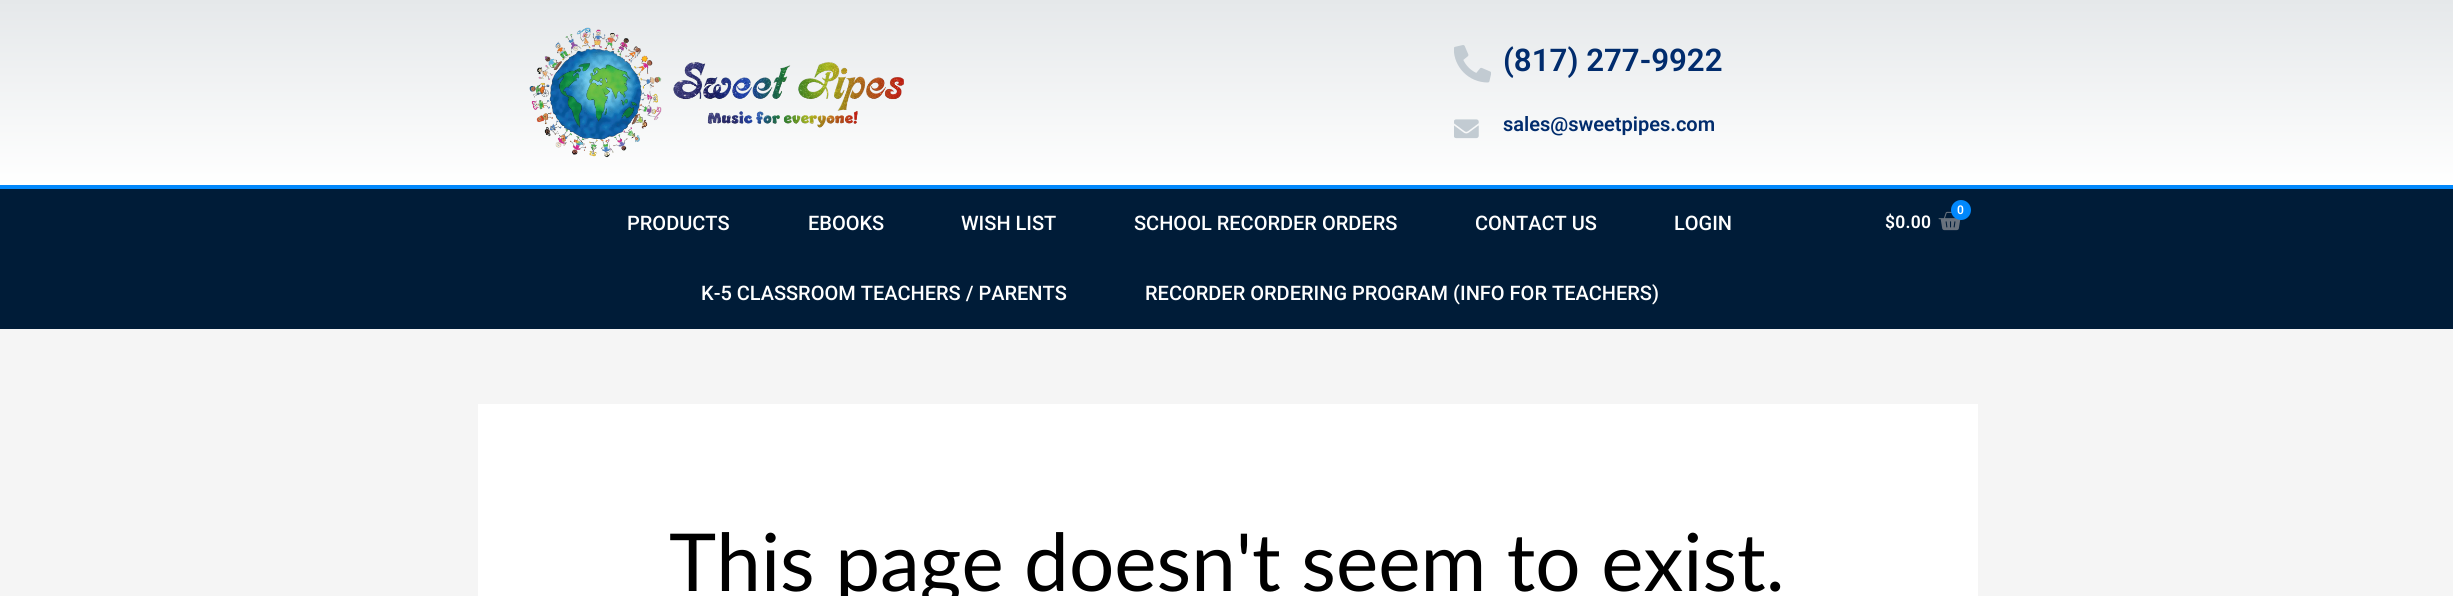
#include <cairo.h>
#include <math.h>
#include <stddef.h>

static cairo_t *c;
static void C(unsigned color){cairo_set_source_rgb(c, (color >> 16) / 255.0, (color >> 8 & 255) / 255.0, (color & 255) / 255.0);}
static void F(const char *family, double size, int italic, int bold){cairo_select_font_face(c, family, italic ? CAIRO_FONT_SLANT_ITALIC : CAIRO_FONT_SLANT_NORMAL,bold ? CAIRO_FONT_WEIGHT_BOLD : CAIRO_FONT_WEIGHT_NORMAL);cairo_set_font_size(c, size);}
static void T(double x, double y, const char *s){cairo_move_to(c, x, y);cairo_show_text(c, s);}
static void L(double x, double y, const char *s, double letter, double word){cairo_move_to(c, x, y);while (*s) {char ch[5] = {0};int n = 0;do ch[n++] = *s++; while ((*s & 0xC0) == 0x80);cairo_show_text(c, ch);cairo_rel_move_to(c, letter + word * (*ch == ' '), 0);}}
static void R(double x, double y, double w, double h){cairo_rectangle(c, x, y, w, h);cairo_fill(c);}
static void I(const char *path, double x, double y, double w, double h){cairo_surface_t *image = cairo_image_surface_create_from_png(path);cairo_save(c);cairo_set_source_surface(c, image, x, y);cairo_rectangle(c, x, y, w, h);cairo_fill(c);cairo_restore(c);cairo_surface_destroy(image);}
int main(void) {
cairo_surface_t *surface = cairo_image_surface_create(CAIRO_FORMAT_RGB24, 2453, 596);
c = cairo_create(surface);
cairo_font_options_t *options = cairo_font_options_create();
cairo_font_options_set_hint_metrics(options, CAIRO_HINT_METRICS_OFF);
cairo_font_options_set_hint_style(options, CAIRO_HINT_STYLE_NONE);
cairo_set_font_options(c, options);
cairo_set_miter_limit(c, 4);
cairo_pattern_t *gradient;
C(0xf5f5f5);
cairo_paint(c);
gradient = cairo_pattern_create_linear(1227,0,1227,185);
cairo_pattern_add_color_stop_rgba(gradient,0,0.898,0.91,0.918,1);
cairo_pattern_add_color_stop_rgba(gradient,1,1,1,1,1);
cairo_set_source(c,gradient);
cairo_pattern_destroy(gradient);
R(0,0,2453,185);
I("1.png",529,27,375,131);
I("2.png",1454,45,37,38);
F("Roboto SemiBold",31.25,0,0);
C(0x012c6d);
T(1503,71,"(817) 277-9922");
I("3.png",1454,119,25,20);
F("Roboto SemiBold",20,0,0);
T(1503,131,"sales@sweetpipes.com");
C(0x001c38);
R(0,189,2453,140);
C(0x0188fc);
R(0,185,2453,4);
F("Roboto Medium",20,0,0);
C(0xffffff);
T(627,230,"PRODUCTS");
T(808,230,"EBOOKS");
T(961,230,"WISH LIST");
T(1134,230,"SCHOOL RECORDER ORDERS");
T(1475,230,"CONTACT US");
T(1674,230,"LOGIN");
T(701,300,"K-5 CLASSROOM TEACHERS / PARENTS");
T(1145,300,"RECORDER ORDERING PROGRAM (INFO FOR TEACHERS)");
I("4.png",1938,211,25,20);
C(0x0188fc);
cairo_arc(c,1961,210,10,0,2 * M_PI);
cairo_fill(c);
F("Roboto SemiBold",12,0,0);
C(0xffffff);
L(1957,214,"0",.25,0);
F("Roboto SemiBold",17.5,0,0);
L(1885,228,"$0.00",.25,0);
R(478,404,1500,192);
F("Lato",80,0,0);
C(0x000000);
T(669,591,"This page doesn't seem to exist.");
cairo_surface_write_to_png(surface, "o.png");
cairo_font_options_destroy(options);
cairo_destroy(c);
cairo_surface_destroy(surface);
return 0;
}
